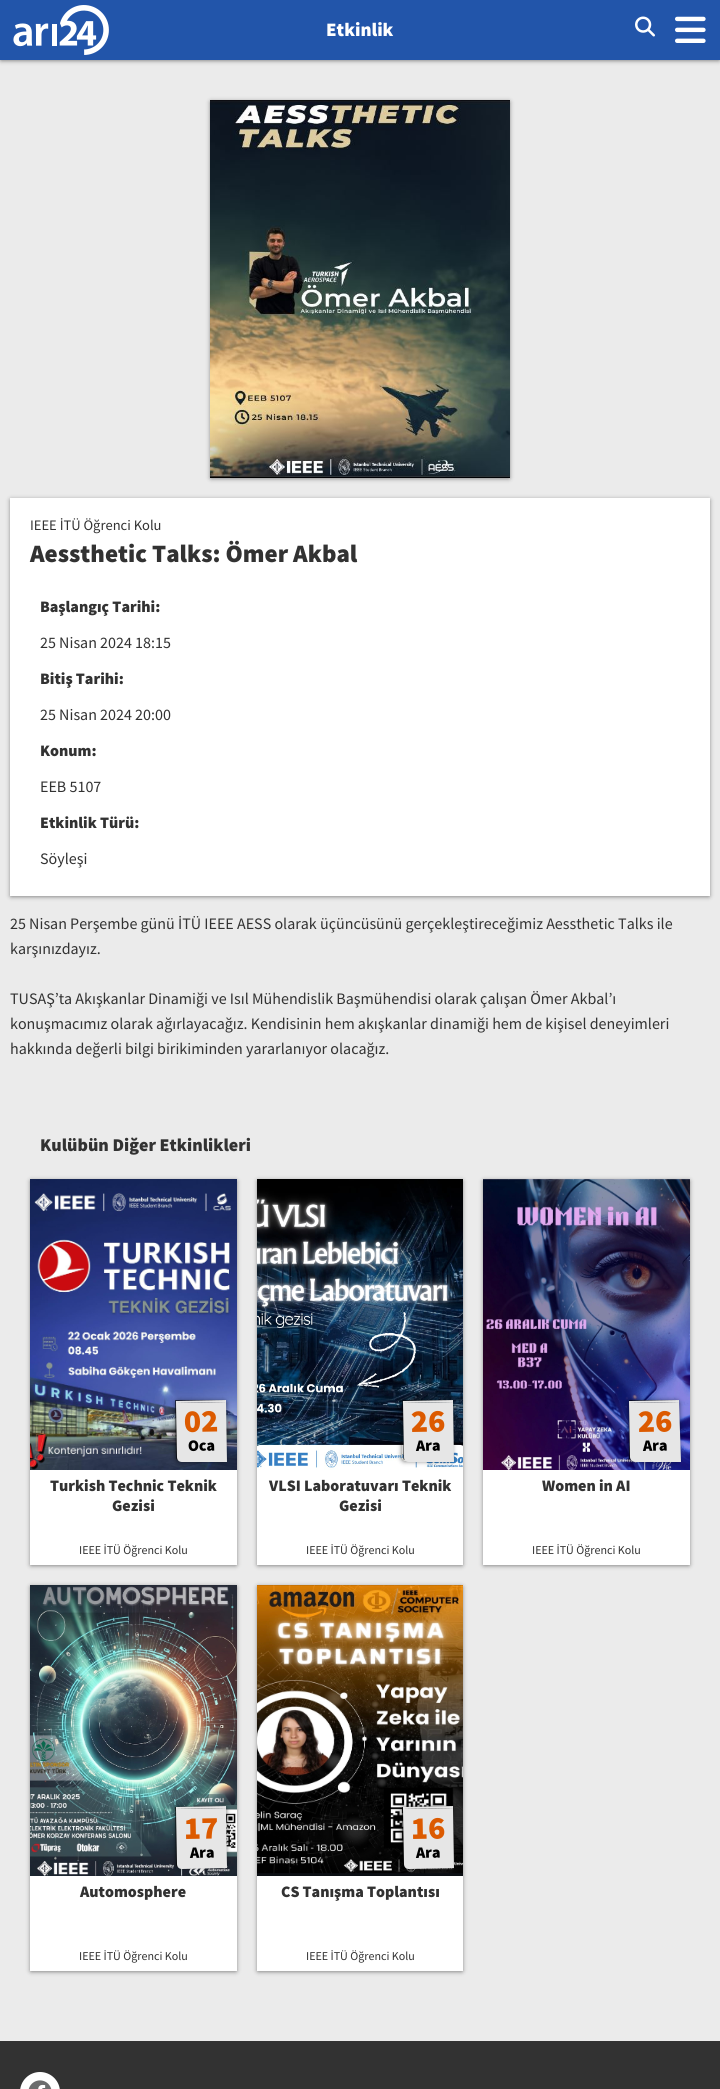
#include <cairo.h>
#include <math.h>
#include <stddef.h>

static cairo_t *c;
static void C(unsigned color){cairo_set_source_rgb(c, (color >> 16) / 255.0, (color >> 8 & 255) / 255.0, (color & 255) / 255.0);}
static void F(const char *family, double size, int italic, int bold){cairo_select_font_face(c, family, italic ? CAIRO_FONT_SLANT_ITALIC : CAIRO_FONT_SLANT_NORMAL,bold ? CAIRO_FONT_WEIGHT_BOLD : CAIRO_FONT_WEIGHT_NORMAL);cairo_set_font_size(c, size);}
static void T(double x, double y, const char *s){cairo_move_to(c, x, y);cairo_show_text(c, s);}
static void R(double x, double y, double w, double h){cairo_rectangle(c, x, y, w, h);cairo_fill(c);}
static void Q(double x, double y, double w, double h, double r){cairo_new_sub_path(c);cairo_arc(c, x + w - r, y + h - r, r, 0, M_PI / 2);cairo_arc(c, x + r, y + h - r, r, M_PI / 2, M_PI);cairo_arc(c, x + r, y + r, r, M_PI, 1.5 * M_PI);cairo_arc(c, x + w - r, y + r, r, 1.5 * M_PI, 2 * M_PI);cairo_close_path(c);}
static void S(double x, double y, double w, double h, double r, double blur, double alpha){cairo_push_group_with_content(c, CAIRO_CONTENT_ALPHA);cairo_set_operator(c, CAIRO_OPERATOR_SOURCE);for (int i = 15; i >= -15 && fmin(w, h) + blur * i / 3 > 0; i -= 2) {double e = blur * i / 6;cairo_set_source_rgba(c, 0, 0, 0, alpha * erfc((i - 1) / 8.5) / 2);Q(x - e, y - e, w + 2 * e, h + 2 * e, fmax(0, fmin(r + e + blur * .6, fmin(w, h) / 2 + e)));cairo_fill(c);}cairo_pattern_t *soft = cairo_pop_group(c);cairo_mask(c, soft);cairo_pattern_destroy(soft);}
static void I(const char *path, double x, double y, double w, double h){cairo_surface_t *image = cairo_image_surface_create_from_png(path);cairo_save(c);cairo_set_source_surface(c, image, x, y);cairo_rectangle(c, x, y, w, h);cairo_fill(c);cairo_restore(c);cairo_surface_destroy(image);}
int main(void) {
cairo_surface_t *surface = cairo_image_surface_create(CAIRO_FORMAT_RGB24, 720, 2089);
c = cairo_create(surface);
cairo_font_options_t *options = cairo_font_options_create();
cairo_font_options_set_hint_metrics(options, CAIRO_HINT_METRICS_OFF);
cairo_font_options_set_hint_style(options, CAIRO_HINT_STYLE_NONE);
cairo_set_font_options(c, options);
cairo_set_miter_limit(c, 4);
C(0xebebeb);
cairo_paint(c);
C(0x000000);
S(1,2,718,58,0,2.5,.6);
C(0x2255aa);
R(0,0,720,60);
I("1.png",13,5,96,50);
I("2.png",635,16,20,21);
I("3.png",675,16,31,27);
F("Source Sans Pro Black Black",19,0,0);
C(0xffffff);
T(326,36,"Etkinlik");
C(0x000000);
S(211,102,298,376,0,2.5,.6);
I("4.png",210,100,300,378);
S(11,500,698,396,0,2.5,.6);
C(0xffffff);
R(10,498,700,398);
F("Source Sans Pro",14.5,0,0);
C(0x323232);
T(30,530,"IEEE İTÜ Öğrenci Kolu");
F("Source Sans Pro Black Black",25,0,0);
T(30,562,"Aessthetic Talks: Ömer Akbal");
F("Source Sans Pro Black Black",16,0,0);
T(40,612,"Başlangıç Tarihi:");
F("Source Sans Pro",16,0,0);
T(40,648,"25 Nisan 2024 18:15");
F("Source Sans Pro Black Black",16,0,0);
T(40,684,"Bitiş Tarihi:");
F("Source Sans Pro",16,0,0);
T(40,720,"25 Nisan 2024 20:00");
F("Source Sans Pro Black Black",16,0,0);
T(40,756,"Konum:");
F("Source Sans Pro",16,0,0);
T(40,792,"EEB 5107");
F("Source Sans Pro Black Black",16,0,0);
T(40,828,"Etkinlik Türü:");
F("Source Sans Pro",16,0,0);
T(40,864,"Söyleşi");
T(10,929,"25 Nisan Perşembe günü İTÜ IEEE AESS olarak üçüncüsünü gerçekleştireceğimiz Aessthetic Talks ile");
T(10,954,"karşınızdayız.");
T(10,1004,"TUSAŞ’ta Akışkanlar Dinamiği ve Isıl Mühendislik Başmühendisi olarak çalışan Ömer Akbal’ı");
T(10,1029,"konuşmacımız olarak ağırlayacağız. Kendisinin hem akışkanlar dinamiği hem de kişisel deneyimleri");
T(10,1054,"hakkında değerli bilgi birikiminden yararlanıyor olacağız.");
F("Source Sans Pro Black Black",18,0,0);
T(40,1151,"Kulübün Diğer Etkinlikleri");
C(0x000000);
S(31,1181,205,384,0,2.5,.6);
C(0xffffff);
R(30,1470,207,95);
I("5.png",30,1179,207,291);
C(0x000000);
S(176,1401,50,60,2,2.5,.6);
cairo_set_source_rgba(c,0,0,0,0.6);
cairo_new_path(c);
cairo_move_to(c,175,1402);
cairo_line_to(c,225,1402);
cairo_line_to(c,226,1460);
cairo_line_to(c,178,1460);
cairo_curve_to(c,177,1460,176,1459,176,1458);
cairo_close_path(c);
cairo_fill(c);
R(175,1400,50,2);
C(0xe6e6e6);
cairo_new_path(c);
cairo_move_to(c,176,1403);
cairo_line_to(c,226,1402);
cairo_line_to(c,227,1462);
cairo_line_to(c,182,1462);
cairo_curve_to(c,179,1462,177,1460,177,1457);
cairo_close_path(c);
cairo_fill(c);
cairo_new_path(c);
cairo_move_to(c,176,1401);
cairo_line_to(c,226,1400);
cairo_line_to(c,226,1402);
cairo_line_to(c,176,1403);
cairo_close_path(c);
cairo_fill(c);
F("Source Sans Pro Black Black",32,0,0);
C(0xdc5a00);
cairo_save(c);
cairo_translate(c,184,1432);
cairo_rotate(c,-1 * M_PI / 180);
T(0,0,"02");
cairo_restore(c);
F("Source Sans Pro Black Black",16,0,0);
C(0x000000);
cairo_save(c);
cairo_translate(c,188,1451);
cairo_rotate(c,-1 * M_PI / 180);
T(0,0,"Oca");
cairo_restore(c);
C(0x323232);
T(50,1491,"Turkish Technic Teknik");
T(112,1511,"Gezisi");
F("Source Sans Pro",12,0,0);
T(79,1554,"IEEE İTÜ Öğrenci Kolu");
C(0x000000);
S(258,1181,204,384,0,2.5,.6);
C(0xffffff);
R(257,1470,206,95);
I("6.png",257,1179,206,291);
cairo_save(c);
cairo_set_fill_rule(c,CAIRO_FILL_RULE_EVEN_ODD);
cairo_new_path(c);
cairo_move_to(c,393,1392);
cairo_line_to(c,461,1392);
cairo_line_to(c,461,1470);
cairo_line_to(c,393,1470);
cairo_close_path(c);
cairo_move_to(c,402,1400.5);
cairo_line_to(c,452,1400);
cairo_line_to(c,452.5,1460);
cairo_line_to(c,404.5,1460.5);
cairo_curve_to(c,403.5,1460.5,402.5,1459.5,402.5,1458.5);
cairo_close_path(c);
cairo_clip(c);
C(0x000000);
S(402,1401,50,60,2,2.5,.6);
cairo_restore(c);
cairo_set_source_rgba(c,0,0,0,0.6);
cairo_new_path(c);
cairo_move_to(c,402,1402);
cairo_line_to(c,452,1402);
cairo_line_to(c,453,1460);
cairo_line_to(c,405,1460);
cairo_curve_to(c,403,1460,403,1459,403,1458);
cairo_close_path(c);
cairo_fill(c);
R(402,1400,50,2);
C(0xe6e6e6);
cairo_new_path(c);
cairo_move_to(c,403,1403);
cairo_line_to(c,453,1402);
cairo_line_to(c,454,1462);
cairo_line_to(c,409,1462);
cairo_curve_to(c,406,1462,404,1460,404,1457);
cairo_close_path(c);
cairo_fill(c);
cairo_new_path(c);
cairo_move_to(c,403,1401);
cairo_line_to(c,453,1400);
cairo_line_to(c,453,1402);
cairo_line_to(c,403,1403);
cairo_close_path(c);
cairo_fill(c);
F("Source Sans Pro Black Black",32,0,0);
C(0xdc5a00);
cairo_save(c);
cairo_translate(c,411,1432);
cairo_rotate(c,-1 * M_PI / 180);
T(0,0,"26");
cairo_restore(c);
F("Source Sans Pro Black Black",16,0,0);
C(0x000000);
cairo_save(c);
cairo_translate(c,416,1451);
cairo_rotate(c,-1 * M_PI / 180);
T(0,0,"Ara");
cairo_restore(c);
C(0x323232);
T(269,1491,"VLSI Laboratuvarı Teknik");
T(339,1511,"Gezisi");
F("Source Sans Pro",12,0,0);
T(306,1554,"IEEE İTÜ Öğrenci Kolu");
C(0x000000);
S(484,1181,205,384,0,2.5,.6);
C(0xffffff);
R(483,1470,207,95);
I("7.png",483,1179,207,291);
C(0x000000);
S(629,1401,50,60,2,2.5,.6);
cairo_set_source_rgba(c,0,0,0,0.6);
cairo_new_path(c);
cairo_move_to(c,629,1402);
cairo_line_to(c,679,1402);
cairo_line_to(c,679,1460);
cairo_line_to(c,631,1460);
cairo_curve_to(c,630,1460,629,1459,629,1458);
cairo_close_path(c);
cairo_fill(c);
R(629,1400,50,1);
C(0xe6e6e6);
cairo_new_path(c);
cairo_move_to(c,629,1403);
cairo_line_to(c,679,1402);
cairo_line_to(c,681,1462);
cairo_line_to(c,636,1462);
cairo_curve_to(c,633,1462,630,1460,630,1457);
cairo_close_path(c);
cairo_fill(c);
cairo_new_path(c);
cairo_move_to(c,629,1401);
cairo_line_to(c,679,1400);
cairo_line_to(c,679,1402);
cairo_line_to(c,629,1403);
cairo_close_path(c);
cairo_fill(c);
F("Source Sans Pro Black Black",32,0,0);
C(0xdc5a00);
cairo_save(c);
cairo_translate(c,638,1432);
cairo_rotate(c,-1 * M_PI / 180);
T(0,0,"26");
cairo_restore(c);
F("Source Sans Pro Black Black",16,0,0);
C(0x000000);
cairo_save(c);
cairo_translate(c,643,1451);
cairo_rotate(c,-1 * M_PI / 180);
T(0,0,"Ara");
cairo_restore(c);
C(0x323232);
T(542,1491,"Women in AI");
F("Source Sans Pro",12,0,0);
T(532,1554,"IEEE İTÜ Öğrenci Kolu");
C(0x000000);
S(31,1587,205,384,0,2.5,.6);
C(0xffffff);
R(30,1876,207,95);
I("8.png",30,1585,207,291);
C(0x000000);
S(176,1807,50,60,2,2.5,.6);
cairo_set_source_rgba(c,0,0,0,0.6);
cairo_new_path(c);
cairo_move_to(c,175,1809);
cairo_line_to(c,225,1808);
cairo_line_to(c,226,1866);
cairo_line_to(c,178,1867);
cairo_curve_to(c,177,1867,176,1866,176,1865);
cairo_close_path(c);
cairo_fill(c);
cairo_new_path(c);
cairo_move_to(c,175,1807);
cairo_line_to(c,225,1806);
cairo_line_to(c,225,1808);
cairo_line_to(c,175,1809);
cairo_close_path(c);
cairo_fill(c);
C(0xe6e6e6);
cairo_new_path(c);
cairo_move_to(c,176,1809);
cairo_line_to(c,226,1808);
cairo_line_to(c,227,1868);
cairo_line_to(c,182,1869);
cairo_curve_to(c,179,1869,177,1867,177,1864);
cairo_close_path(c);
cairo_fill(c);
cairo_new_path(c);
cairo_move_to(c,176,1807);
cairo_line_to(c,226,1806);
cairo_line_to(c,226,1808);
cairo_line_to(c,176,1809);
cairo_close_path(c);
cairo_fill(c);
F("Source Sans Pro Black Black",32,0,0);
C(0xdc5a00);
cairo_save(c);
cairo_translate(c,184,1839);
cairo_rotate(c,-1 * M_PI / 180);
T(0,0,"17");
cairo_restore(c);
F("Source Sans Pro Black Black",16,0,0);
C(0x000000);
cairo_save(c);
cairo_translate(c,190,1858);
cairo_rotate(c,-1 * M_PI / 180);
T(0,0,"Ara");
cairo_restore(c);
C(0x323232);
T(80,1897,"Automosphere");
F("Source Sans Pro",12,0,0);
T(79,1960,"IEEE İTÜ Öğrenci Kolu");
C(0x000000);
S(258,1587,204,384,0,2.5,.6);
C(0xffffff);
R(257,1876,206,95);
I("9.png",257,1585,206,291);
C(0x000000);
S(402,1807,50,60,2,2.5,.6);
cairo_set_source_rgba(c,0,0,0,0.6);
cairo_new_path(c);
cairo_move_to(c,402,1809);
cairo_line_to(c,452,1808);
cairo_line_to(c,453,1866);
cairo_line_to(c,405,1867);
cairo_curve_to(c,403,1867,403,1866,403,1865);
cairo_close_path(c);
cairo_fill(c);
cairo_new_path(c);
cairo_move_to(c,402,1807);
cairo_line_to(c,452,1806);
cairo_line_to(c,452,1808);
cairo_line_to(c,402,1809);
cairo_close_path(c);
cairo_fill(c);
C(0xe6e6e6);
cairo_new_path(c);
cairo_move_to(c,403,1809);
cairo_line_to(c,453,1808);
cairo_line_to(c,454,1868);
cairo_line_to(c,409,1869);
cairo_curve_to(c,406,1869,404,1867,404,1864);
cairo_close_path(c);
cairo_fill(c);
cairo_new_path(c);
cairo_move_to(c,403,1807);
cairo_line_to(c,453,1806);
cairo_line_to(c,453,1808);
cairo_line_to(c,403,1809);
cairo_close_path(c);
cairo_fill(c);
F("Source Sans Pro Black Black",32,0,0);
C(0xdc5a00);
cairo_save(c);
cairo_translate(c,411,1839);
cairo_rotate(c,-1 * M_PI / 180);
T(0,0,"16");
cairo_restore(c);
F("Source Sans Pro Black Black",16,0,0);
C(0x000000);
cairo_save(c);
cairo_translate(c,416,1858);
cairo_rotate(c,-1 * M_PI / 180);
T(0,0,"Ara");
cairo_restore(c);
C(0x323232);
T(281,1897,"CS Tanışma Toplantısı");
F("Source Sans Pro",12,0,0);
T(306,1960,"IEEE İTÜ Öğrenci Kolu");
R(0,2041,720,48);
C(0xffffff);
Q(20,2072,40,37,20);
cairo_fill(c);
I("10.png",28,2080,24,9);
cairo_surface_write_to_png(surface, "o.png");
cairo_font_options_destroy(options);
cairo_destroy(c);
cairo_surface_destroy(surface);
return 0;
}
